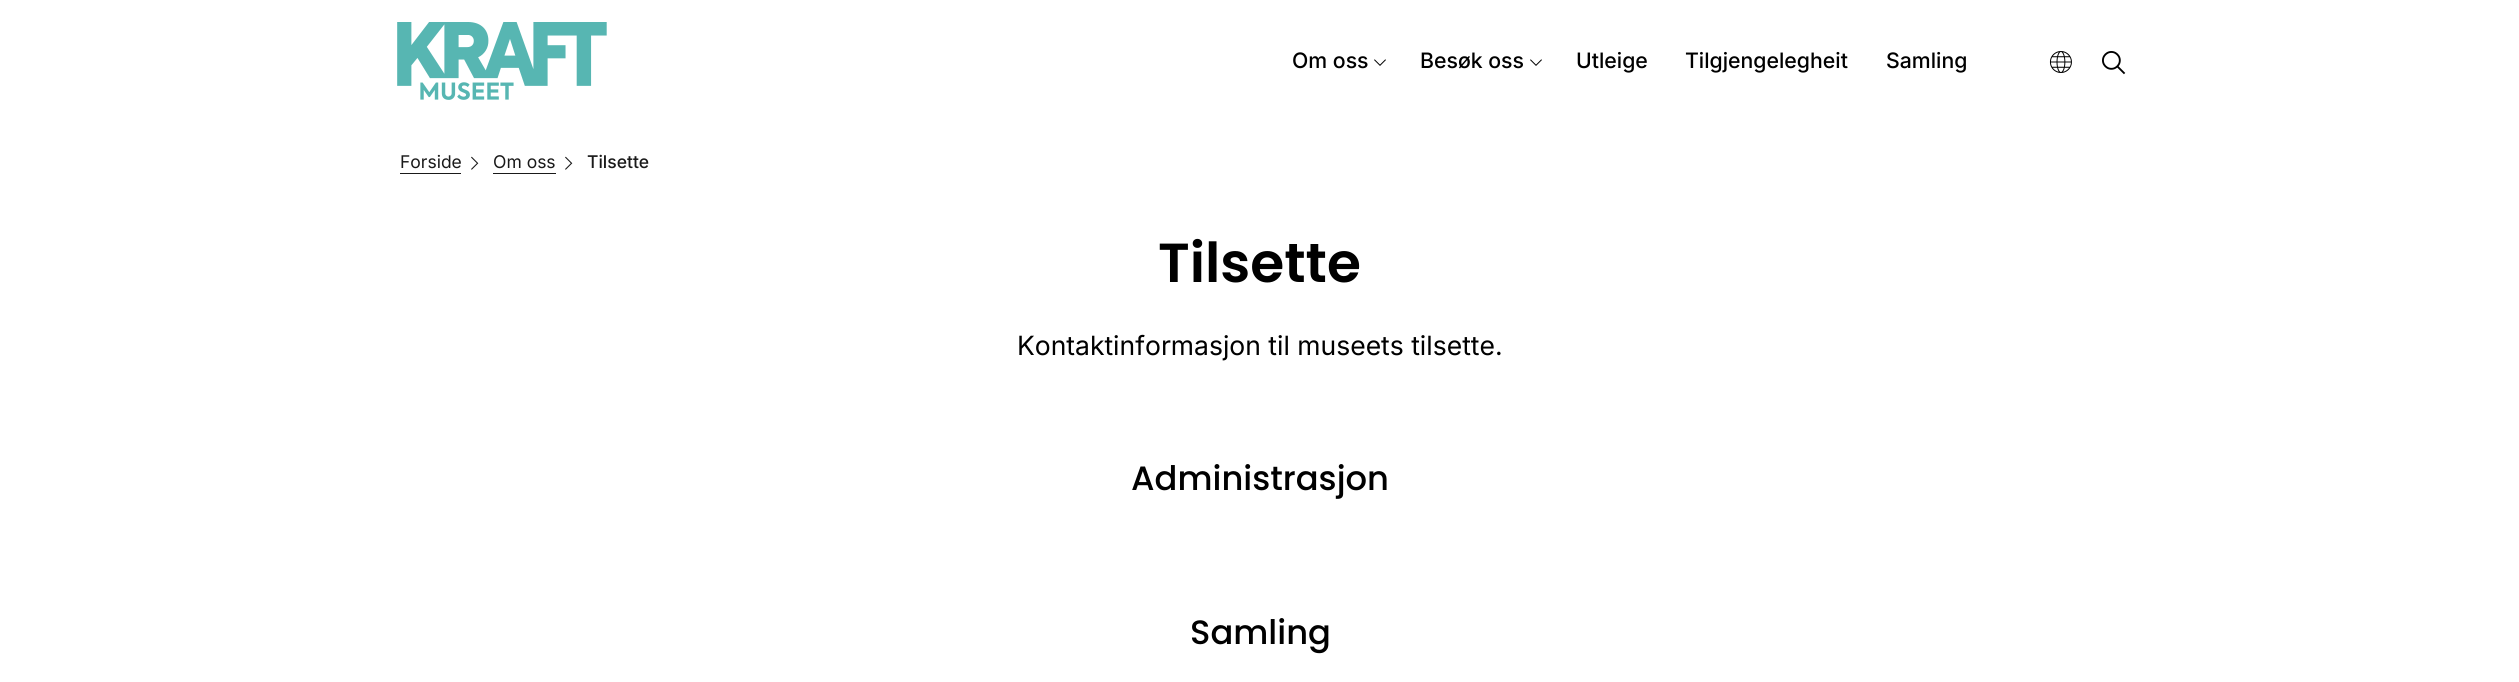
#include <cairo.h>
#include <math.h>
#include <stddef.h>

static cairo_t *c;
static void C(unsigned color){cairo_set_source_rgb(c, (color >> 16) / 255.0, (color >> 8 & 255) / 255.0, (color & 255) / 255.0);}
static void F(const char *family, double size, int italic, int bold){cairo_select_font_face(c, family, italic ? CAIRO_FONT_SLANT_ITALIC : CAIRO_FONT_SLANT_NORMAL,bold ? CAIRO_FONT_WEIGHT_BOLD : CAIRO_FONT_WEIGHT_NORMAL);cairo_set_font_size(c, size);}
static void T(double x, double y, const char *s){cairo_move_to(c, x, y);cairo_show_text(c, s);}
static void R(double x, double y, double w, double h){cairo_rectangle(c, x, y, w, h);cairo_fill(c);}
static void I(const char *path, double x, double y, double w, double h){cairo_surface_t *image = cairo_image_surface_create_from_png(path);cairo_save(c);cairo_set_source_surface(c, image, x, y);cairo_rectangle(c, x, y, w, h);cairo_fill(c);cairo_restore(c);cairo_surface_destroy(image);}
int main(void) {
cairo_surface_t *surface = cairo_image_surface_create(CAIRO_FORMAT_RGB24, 2519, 682);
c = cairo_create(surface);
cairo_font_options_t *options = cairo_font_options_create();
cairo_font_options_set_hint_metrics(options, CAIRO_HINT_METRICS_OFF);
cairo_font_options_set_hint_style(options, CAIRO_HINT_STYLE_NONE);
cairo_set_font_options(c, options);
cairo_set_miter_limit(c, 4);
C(0xffffff);
cairo_paint(c);
I("1.png",397,22,210,78);
F("Inter Medium",21.25,0,0);
C(0x000000);
T(1292,68,"Om oss");
F("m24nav",16,0,0);
T(1374,70,"﹀");
F("Inter Medium",21.25,0,0);
T(1420,68,"Besøk oss");
F("m24nav",16,0,0);
T(1530,70,"﹀");
F("Inter Medium",21.25,0,0);
T(1576,68,"Utleige");
T(1685,68,"Tilgjengelegheit");
T(1886,68,"Samling");
F("m24nav",22,0,0);
T(2050,73,"⚐");
F("m24nav",30,0,0);
T(2102,78,"☉");
F("Inter",17.5,0,0);
C(0x1a1a1a);
T(400,168,"Forside");
R(400,173,61,1);
F("m24nav",17.5,0,0);
T(471,172,"〉");
F("Inter",17.5,0,0);
T(493,168,"Om oss");
R(493,173,63,1);
F("m24nav",17.5,0,0);
T(565,172,"〉");
F("Inter Medium",17.5,0,0);
T(587,168,"Tilsette");
F("Poppins SemiBold",55,0,0);
C(0x000000);
T(1158,282,"Tilsette");
F("Inter",26.5,0,0);
T(1017,355,"Kontaktinformasjon til museets tilsette.");
F("Poppins Medium",33.75,0,0);
T(1131,490,"Administrasjon");
T(1190,644,"Samling");
cairo_surface_write_to_png(surface, "o.png");
cairo_font_options_destroy(options);
cairo_destroy(c);
cairo_surface_destroy(surface);
return 0;
}
